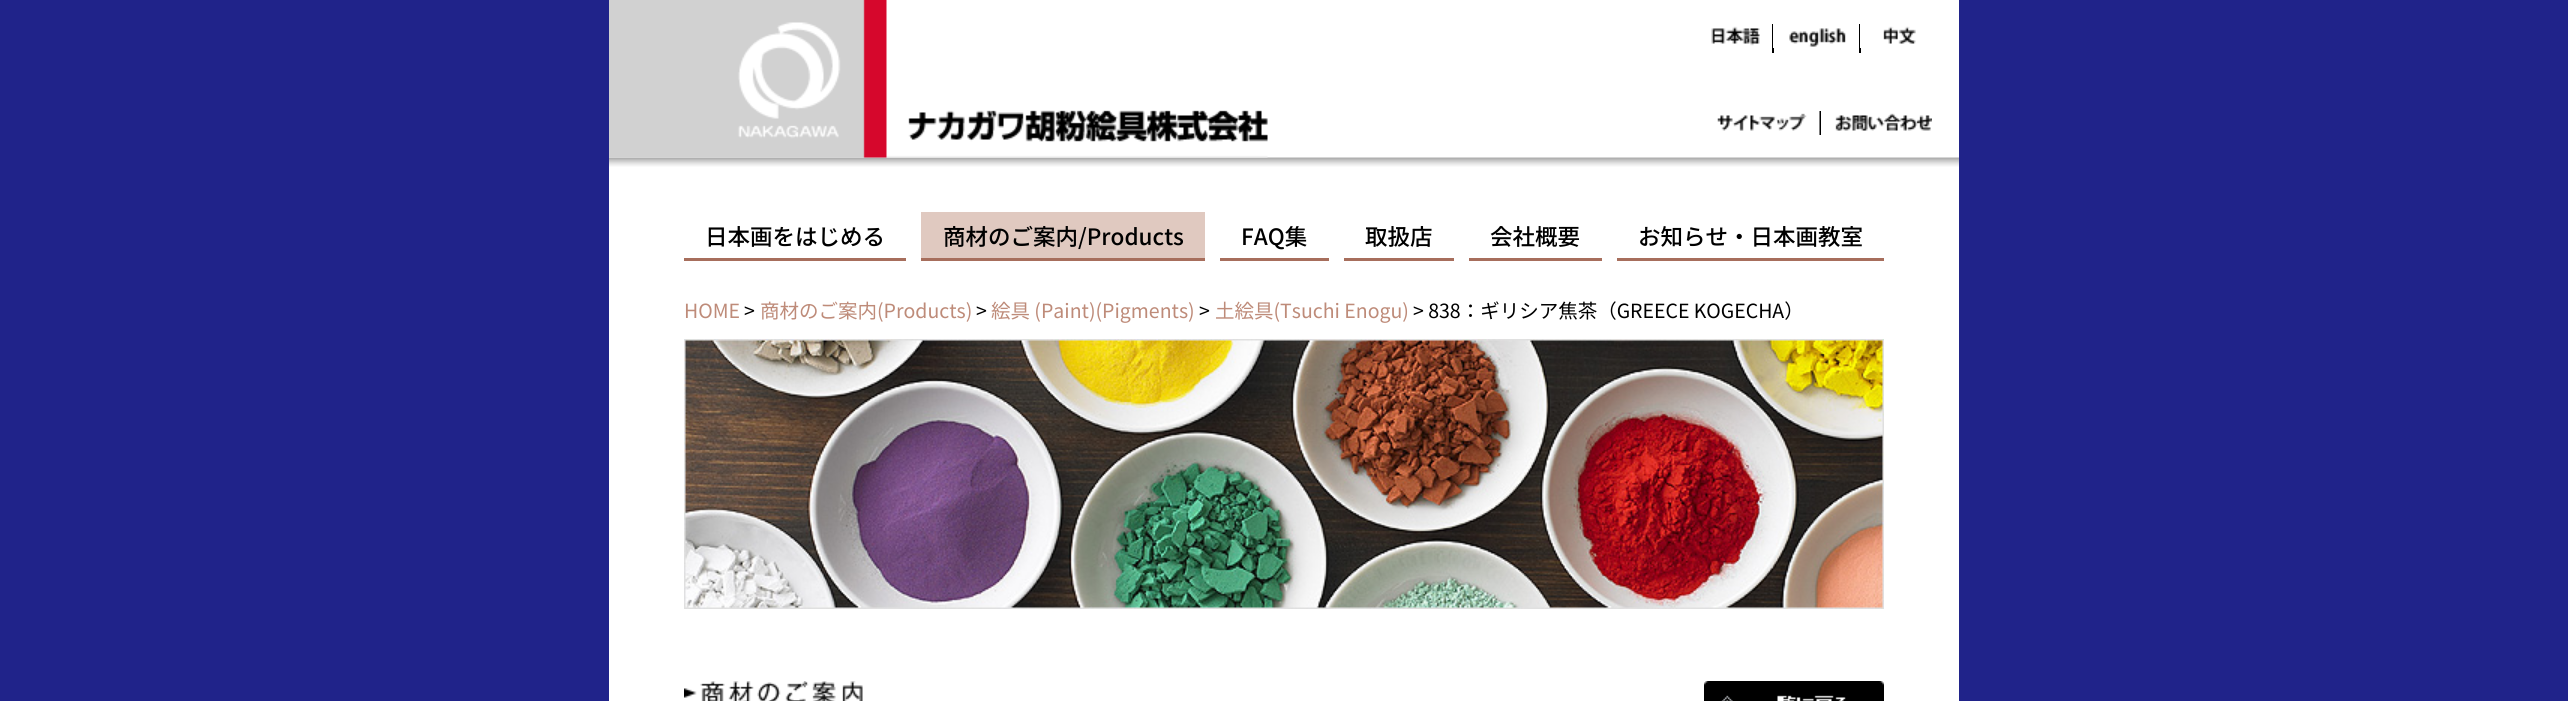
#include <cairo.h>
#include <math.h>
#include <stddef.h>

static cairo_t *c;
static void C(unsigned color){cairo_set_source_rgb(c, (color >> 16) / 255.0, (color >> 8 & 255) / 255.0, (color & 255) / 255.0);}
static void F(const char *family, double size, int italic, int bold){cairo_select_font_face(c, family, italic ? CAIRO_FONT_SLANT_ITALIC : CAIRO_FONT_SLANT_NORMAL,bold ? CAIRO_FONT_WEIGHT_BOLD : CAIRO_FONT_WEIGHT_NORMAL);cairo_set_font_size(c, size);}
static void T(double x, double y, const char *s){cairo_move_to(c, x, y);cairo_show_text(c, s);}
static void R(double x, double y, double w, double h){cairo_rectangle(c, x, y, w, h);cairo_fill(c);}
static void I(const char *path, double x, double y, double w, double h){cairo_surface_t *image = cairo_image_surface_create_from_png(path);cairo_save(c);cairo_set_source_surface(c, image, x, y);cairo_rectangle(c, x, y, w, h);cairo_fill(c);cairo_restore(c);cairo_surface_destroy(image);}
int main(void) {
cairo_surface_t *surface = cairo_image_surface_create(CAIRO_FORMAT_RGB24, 2568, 701);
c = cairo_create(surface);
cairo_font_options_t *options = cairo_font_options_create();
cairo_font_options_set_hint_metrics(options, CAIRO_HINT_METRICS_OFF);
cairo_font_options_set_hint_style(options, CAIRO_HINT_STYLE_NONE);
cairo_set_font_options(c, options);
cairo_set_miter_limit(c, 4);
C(0x20238a);
cairo_paint(c);
C(0xffffff);
R(609,0,1350,701);
I("1.png",609,157,1350,10);
I("2.png",609,0,659,158);
I("3.png",1711,26,49,20);
C(0x000000);
R(1772,24,2,29);
I("4.png",1773,24,73,24);
R(1859,24,2,29);
I("5.png",1860,24,56,24);
I("6.png",1717,111,104,24);
I("7.png",1835,113,97,18);
C(0xa76e5c);
R(684,258,222,3);
F("Noto Sans JP Medium",22.5,0,0);
C(0x000000);
T(705,245,"日本画をはじめる");
C(0xe0c9c0);
R(921,212,284,46);
C(0xa76e5c);
R(921,258,284,3);
C(0x000000);
T(943,245,"商材のご案内/Products");
C(0xa76e5c);
R(1220,258,109,3);
C(0x000000);
T(1241,245,"FAQ集");
C(0xa76e5c);
R(1344,258,110,3);
C(0x000000);
T(1365,245,"取扱店");
C(0xa76e5c);
R(1469,258,133,3);
C(0x000000);
T(1490,245,"会社概要");
C(0xa76e5c);
R(1617,258,267,3);
C(0x000000);
T(1638,245,"お知らせ・日本画教室");
F("Noto Sans JP",19.5,0,0);
C(0xbe8b79);
T(684,318,"HOME");
C(0x000000);
T(744,318,">");
C(0xbe8b79);
T(760,318,"商材のご案内(Products)");
C(0x000000);
T(976,318,">");
C(0xbe8b79);
T(991,318,"絵具 (Paint)(Pigments)");
C(0x000000);
T(1199,318,">");
C(0xbe8b79);
T(1215,318,"土絵具(Tsuchi Enogu)");
C(0x000000);
T(1413,318,"> 838：ギリシア焦茶（GREECE KOGECHA）");
I("8.png",684,339,1200,270);
I("9.png",684,681,179,20);
I("10.png",1704,681,180,20);
cairo_surface_write_to_png(surface, "o.png");
cairo_font_options_destroy(options);
cairo_destroy(c);
cairo_surface_destroy(surface);
return 0;
}
